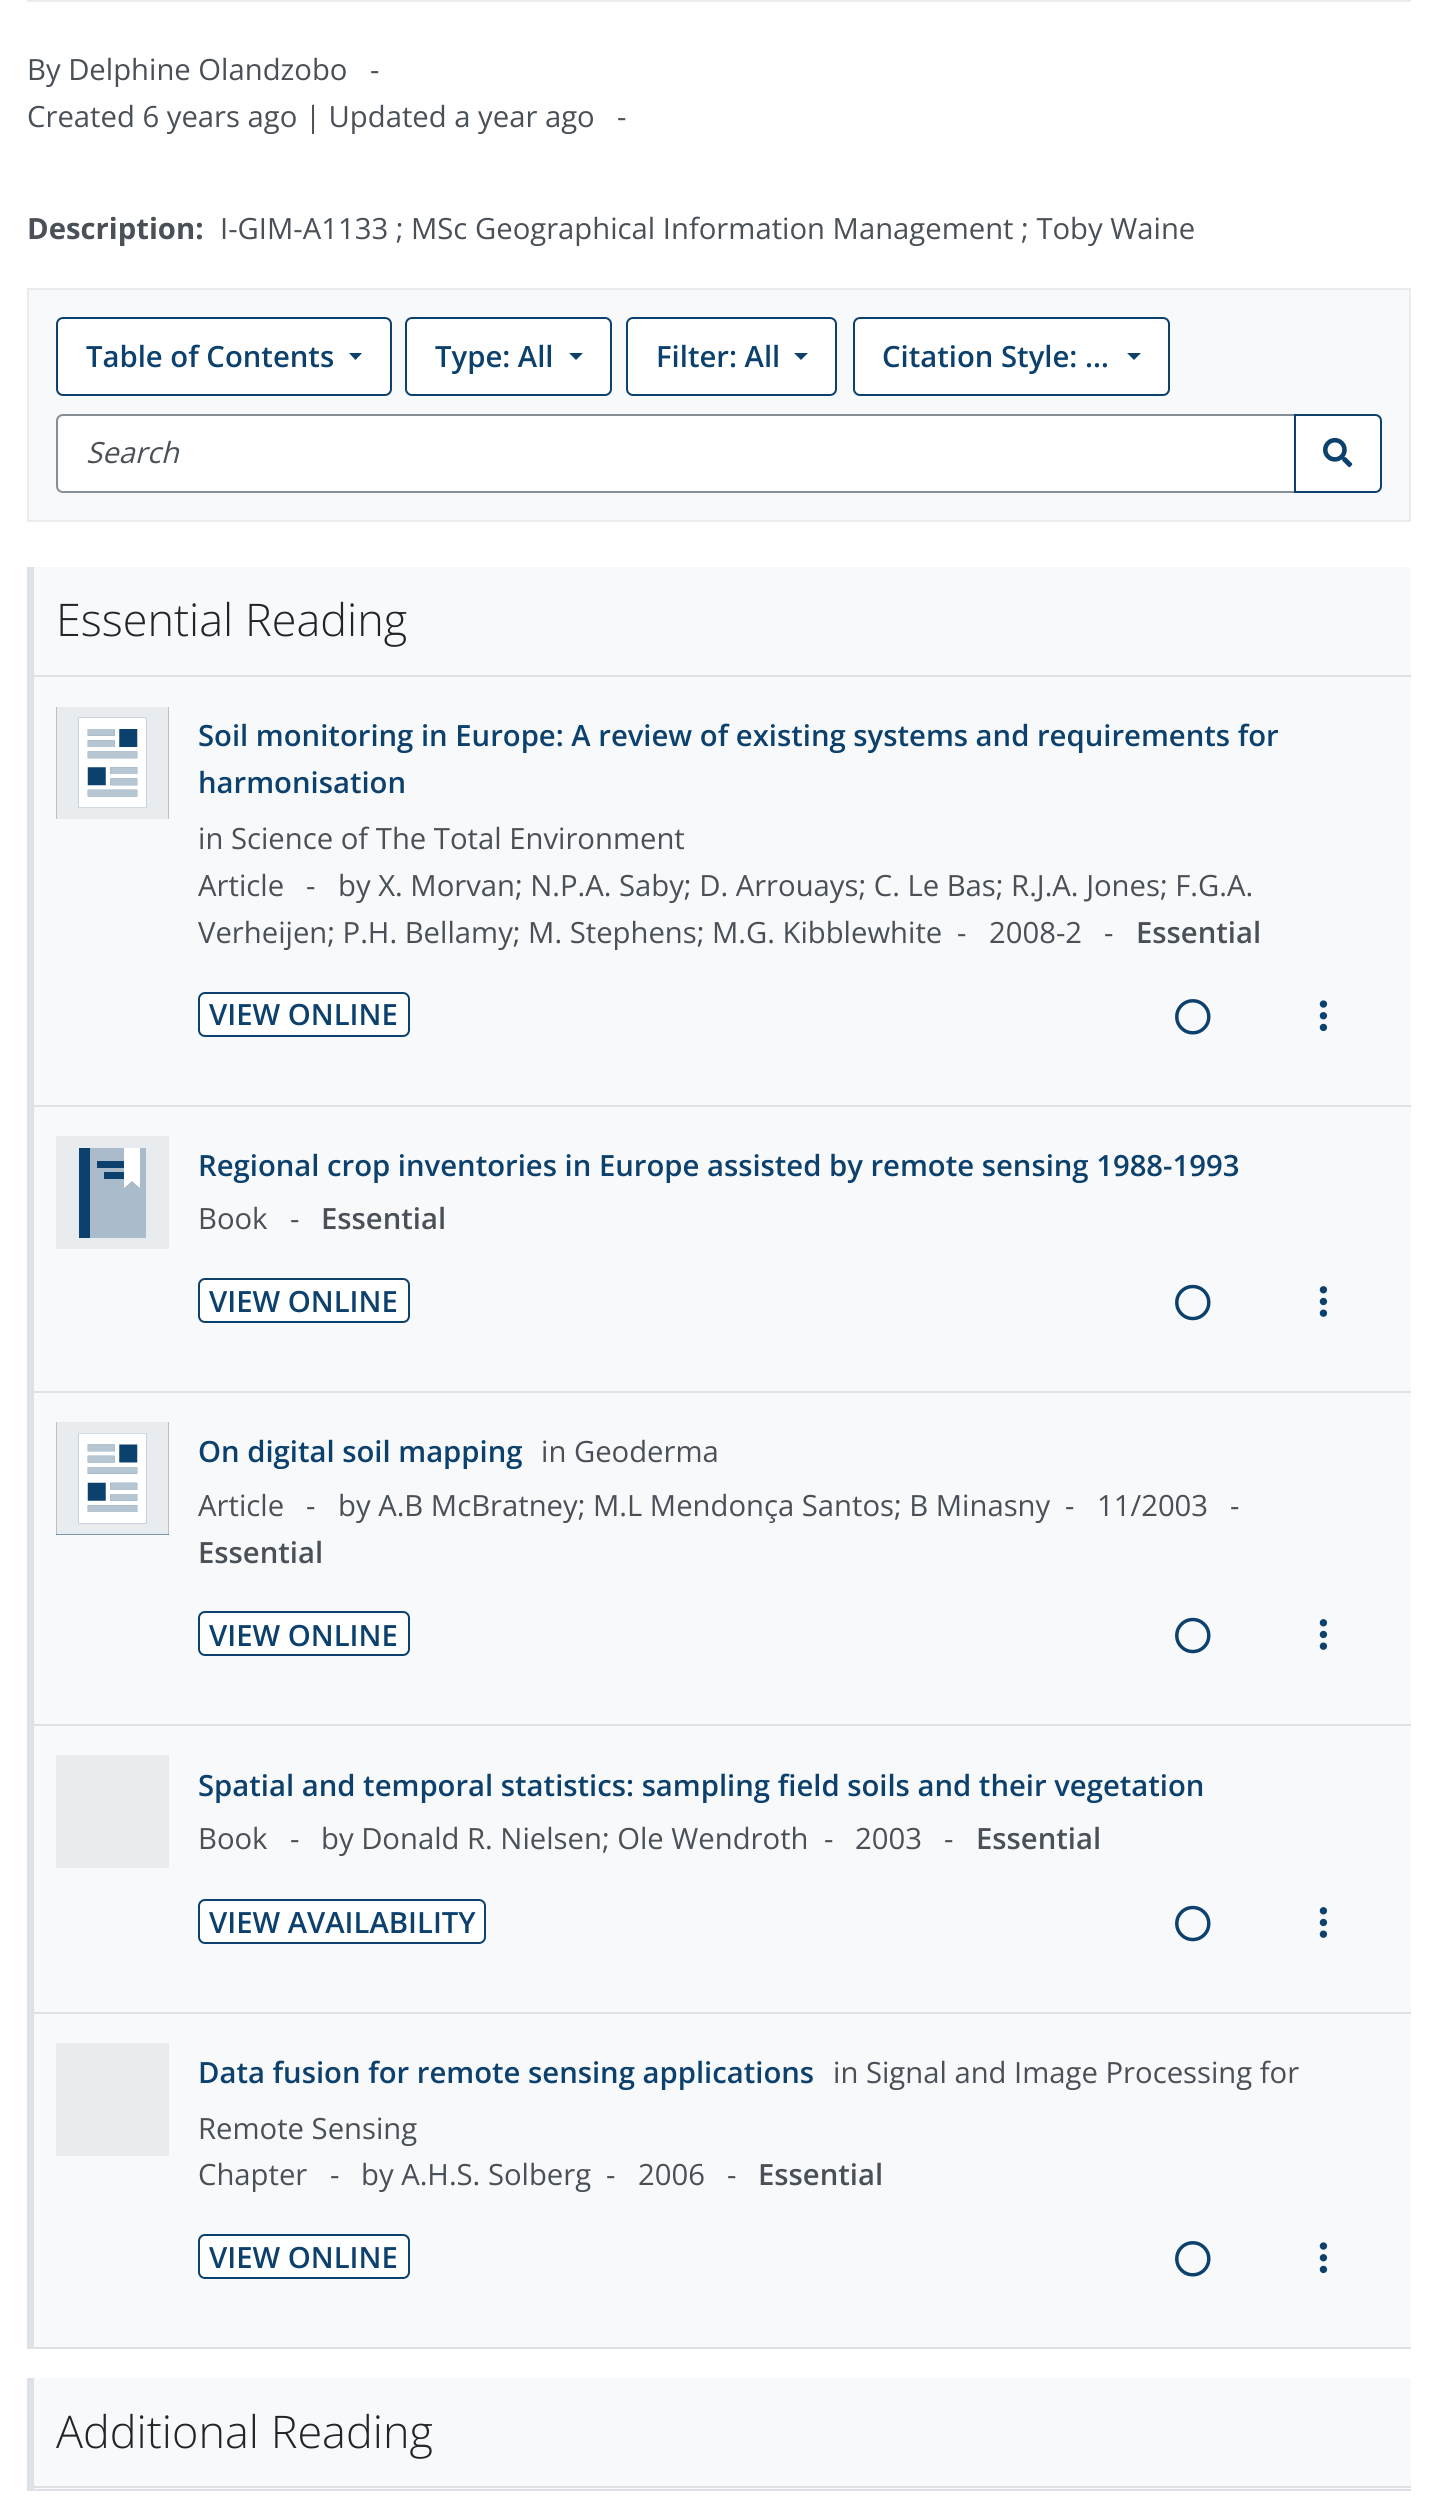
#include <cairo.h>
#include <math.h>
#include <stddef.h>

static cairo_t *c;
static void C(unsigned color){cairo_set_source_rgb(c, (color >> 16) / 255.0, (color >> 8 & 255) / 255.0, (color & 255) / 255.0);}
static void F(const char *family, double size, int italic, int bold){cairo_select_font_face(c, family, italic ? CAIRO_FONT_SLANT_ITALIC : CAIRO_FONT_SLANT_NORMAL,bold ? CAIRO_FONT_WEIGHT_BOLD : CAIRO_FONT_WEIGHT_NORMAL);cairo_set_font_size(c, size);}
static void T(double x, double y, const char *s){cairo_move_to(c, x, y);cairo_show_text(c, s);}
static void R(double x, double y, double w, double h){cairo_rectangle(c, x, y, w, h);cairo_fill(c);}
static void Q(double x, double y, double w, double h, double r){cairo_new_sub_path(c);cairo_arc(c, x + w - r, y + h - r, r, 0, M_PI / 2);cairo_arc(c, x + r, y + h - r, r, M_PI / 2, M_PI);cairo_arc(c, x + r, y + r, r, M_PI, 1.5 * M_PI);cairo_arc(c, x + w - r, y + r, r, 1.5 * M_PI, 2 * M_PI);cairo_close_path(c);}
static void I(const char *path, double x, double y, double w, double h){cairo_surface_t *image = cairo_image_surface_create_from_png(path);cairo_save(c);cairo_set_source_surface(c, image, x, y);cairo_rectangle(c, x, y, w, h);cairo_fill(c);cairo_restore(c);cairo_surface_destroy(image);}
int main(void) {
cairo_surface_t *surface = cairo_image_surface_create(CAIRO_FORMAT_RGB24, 1437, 2509);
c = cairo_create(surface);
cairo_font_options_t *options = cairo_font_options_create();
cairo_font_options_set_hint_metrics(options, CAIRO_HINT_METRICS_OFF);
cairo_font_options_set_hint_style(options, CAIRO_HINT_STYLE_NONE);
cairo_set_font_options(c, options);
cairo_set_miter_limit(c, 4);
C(0xffffff);
cairo_paint(c);
C(0xe9ecef);
R(27,0,1384,2);
F("Open Sans",29.25,0,0);
C(0x495057);
T(27,80,"By Delphine Olandzobo");
T(370,80,"-");
T(27,127,"Created 6 years ago | Updated a year ago");
T(617,127,"-");
F("Open Sans",29.25,0,1);
T(27,239,"Description:");
F("Open Sans",29.25,0,0);
T(220,239,"I-GIM-A1133 ; MSc Geographical Information Management ; Toby Waine");
C(0xf8f9fa);
cairo_rectangle(c,28,289,1382,232);
cairo_fill_preserve(c);
C(0xe9ecef);
cairo_stroke(c);
C(0xffffff);
Q(57,318,334,77,6);
cairo_fill_preserve(c);
C(0x0c406d);
cairo_stroke(c);
F("Open Sans SemiBold",29.25,0,0);
T(86,367,"Table of Contents");
cairo_new_path(c);
cairo_move_to(c,349,353);
cairo_line_to(c,362,353);
cairo_line_to(c,355.5,360);
cairo_close_path(c);
cairo_fill(c);
C(0xffffff);
Q(406,318,205,77,6);
cairo_fill_preserve(c);
C(0x0c406d);
cairo_stroke(c);
T(435,367,"Type: All");
cairo_new_path(c);
cairo_move_to(c,569,353);
cairo_line_to(c,583,353);
cairo_line_to(c,576,360);
cairo_close_path(c);
cairo_fill(c);
C(0xffffff);
Q(627,318,209,77,6);
cairo_fill_preserve(c);
C(0x0c406d);
cairo_stroke(c);
T(656,367,"Filter: All");
cairo_new_path(c);
cairo_move_to(c,794,353);
cairo_line_to(c,808,353);
cairo_line_to(c,801,360);
cairo_close_path(c);
cairo_fill(c);
C(0xffffff);
Q(854,318,315,77,6);
cairo_fill_preserve(c);
C(0x0c406d);
cairo_stroke(c);
T(882,367,"Citation Style: …");
cairo_new_path(c);
cairo_move_to(c,1127,353);
cairo_line_to(c,1141,353);
cairo_line_to(c,1134,360);
cairo_close_path(c);
cairo_fill(c);
C(0xffffff);
cairo_new_path(c);
cairo_move_to(c,64,416);
cairo_line_to(c,1294,416);
cairo_line_to(c,1294,491);
cairo_line_to(c,64,491);
cairo_curve_to(c,61,491,59,489,59,486);
cairo_line_to(c,59,421);
cairo_curve_to(c,59,418,61,416,64,416);
cairo_close_path(c);
cairo_fill(c);
cairo_new_path(c);
cairo_move_to(c,63,415);
cairo_line_to(c,1295,415);
cairo_line_to(c,1295,492);
cairo_line_to(c,63,492);
cairo_curve_to(c,59.5,492,57,489.5,57,486);
cairo_line_to(c,57,421);
cairo_curve_to(c,57,417.5,59.5,415,63,415);
cairo_close_path(c);
C(0x868e96);
cairo_stroke(c);
F("Open Sans",29.25,1,0);
C(0x495057);
T(86,463,"Search");
C(0xffffff);
cairo_new_path(c);
cairo_move_to(c,1295,415);
cairo_line_to(c,1375,415);
cairo_curve_to(c,1378.5,415,1381,417.5,1381,421);
cairo_line_to(c,1381,486);
cairo_curve_to(c,1381,489.5,1378.5,492,1375,492);
cairo_line_to(c,1295,492);
cairo_close_path(c);
cairo_fill_preserve(c);
C(0x0c406d);
cairo_stroke(c);
I("1.png",1323,437,30,31);
C(0xf8f9fa);
R(34,567,1377,1780);
C(0xdee2e6);
R(27,567,7,1780);
R(27,2347,1384,2);
R(27,675,1384,2);
F("Open Sans Light",45,0,0);
C(0x212529);
T(56,636,"Essential Reading");
C(0xdee2e6);
R(27,1105,1384,2);
C(0x0c406d);
R(56,707,113,112);
I("2.png",56,707,113,112);
F("Open Sans SemiBold",29.25,0,0);
T(198,746,"Soil monitoring in Europe: A review of existing systems and requirements for");
T(198,793,"harmonisation");
F("Open Sans",29.25,0,0);
C(0x495057);
T(198,849,"in Science of The Total Environment");
T(198,896,"Article");
T(306,896,"-");
T(338,896,"by X. Morvan; N.P.A. Saby; D. Arrouays; C. Le Bas; R.J.A. Jones; F.G.A.");
T(198,943,"Verheijen; P.H. Bellamy; M. Stephens; M.G. Kibblewhite");
T(957,943,"-");
T(989,943,"2008-2");
T(1104,943,"-");
F("Open Sans SemiBold",29.25,0,0);
T(1136,943,"Essential");
C(0xffffff);
Q(199,993,210,43,6);
cairo_fill_preserve(c);
C(0x0c406d);
cairo_stroke(c);
T(209,1025,"VIEW ONLINE");
I("3.png",1175,999,36,36);
I("4.png",1319,1000,9,32);
C(0xdee2e6);
R(27,1391,1384,2);
C(0x0c406d);
R(79,1148,45,90);
C(0xe9ecef);
cairo_new_path(c);
cairo_move_to(c,56,1249);
cairo_line_to(c,56,1136);
cairo_line_to(c,169,1136);
cairo_line_to(c,169,1249);
cairo_close_path(c);
cairo_move_to(c,90,1148);
cairo_line_to(c,90,1238);
cairo_line_to(c,146,1238);
cairo_line_to(c,146,1148);
cairo_close_path(c);
cairo_move_to(c,79,1148);
cairo_line_to(c,79,1238);
cairo_line_to(c,90,1238);
cairo_line_to(c,90,1148);
cairo_close_path(c);
cairo_fill(c);
C(0xaabccc);
cairo_new_path(c);
cairo_move_to(c,90,1148);
cairo_line_to(c,146,1148);
cairo_line_to(c,146,1238);
cairo_line_to(c,90,1238);
cairo_close_path(c);
cairo_move_to(c,97,1168);
cairo_line_to(c,124,1168);
cairo_line_to(c,124,1161);
cairo_line_to(c,97,1161);
cairo_close_path(c);
cairo_move_to(c,104,1179);
cairo_line_to(c,124,1179);
cairo_line_to(c,124,1172);
cairo_line_to(c,104,1172);
cairo_close_path(c);
cairo_fill(c);
C(0xffffff);
cairo_new_path(c);
cairo_move_to(c,124,1148);
cairo_line_to(c,140,1148);
cairo_line_to(c,140,1188);
cairo_line_to(c,132,1181);
cairo_line_to(c,124,1188);
cairo_close_path(c);
cairo_fill(c);
C(0x0c406d);
T(198,1176,"Regional crop inventories in Europe assisted by remote sensing 1988-1993");
F("Open Sans",29.25,0,0);
C(0x495057);
T(198,1229,"Book");
T(290,1229,"-");
F("Open Sans SemiBold",29.25,0,0);
T(321,1229,"Essential");
C(0xffffff);
Q(199,1279,210,43,6);
cairo_fill_preserve(c);
C(0x0c406d);
cairo_stroke(c);
T(209,1312,"VIEW ONLINE");
I("5.png",1175,1284,36,37);
I("6.png",1319,1286,9,31);
C(0xdee2e6);
R(27,1724,1384,2);
C(0x0c406d);
R(56,1422,113,113);
I("7.png",56,1422,113,113);
T(198,1462,"On digital soil mapping");
F("Open Sans",29.25,0,0);
C(0x495057);
T(541,1462,"in Geoderma");
T(198,1516,"Article");
T(306,1516,"-");
T(338,1516,"by A.B McBratney; M.L Mendonça Santos; B Minasny");
T(1065,1516,"-");
T(1097,1516,"11/2003");
T(1230,1516,"-");
F("Open Sans SemiBold",29.25,0,0);
T(198,1563,"Essential");
C(0xffffff);
Q(199,1612,210,43,6);
cairo_fill_preserve(c);
C(0x0c406d);
cairo_stroke(c);
T(209,1646,"VIEW ONLINE");
I("5.png",1175,1617,36,37);
I("6.png",1319,1619,9,31);
C(0xdee2e6);
R(27,2012,1384,2);
C(0xe9ecef);
R(56,1755,113,113);
C(0x0c406d);
T(198,1796,"Spatial and temporal statistics: sampling field soils and their vegetation");
F("Open Sans",29.25,0,0);
C(0x495057);
T(198,1849,"Book");
T(290,1849,"-");
T(321,1849,"by Donald R. Nielsen; Ole Wendroth");
T(824,1849,"-");
T(855,1849,"2003");
T(944,1849,"-");
F("Open Sans SemiBold",29.25,0,0);
T(976,1849,"Essential");
C(0xffffff);
Q(199,1900,286,43,6);
cairo_fill_preserve(c);
C(0x0c406d);
cairo_stroke(c);
T(209,1933,"VIEW AVAILABILITY");
I("5.png",1175,1905,36,37);
I("6.png",1319,1907,9,31);
C(0xe9ecef);
R(56,2043,113,113);
C(0x0c406d);
T(198,2083,"Data fusion for remote sensing applications");
F("Open Sans",29.25,0,0);
C(0x495057);
T(833,2083,"in Signal and Image Processing for");
T(198,2139,"Remote Sensing");
T(198,2185,"Chapter");
T(330,2185,"-");
T(361,2185,"by A.H.S. Solberg");
T(606,2185,"-");
T(638,2185,"2006");
T(727,2185,"-");
F("Open Sans SemiBold",29.25,0,0);
T(758,2185,"Essential");
C(0xffffff);
Q(199,2235,210,43,6);
cairo_fill_preserve(c);
C(0x0c406d);
cairo_stroke(c);
T(209,2268,"VIEW ONLINE");
I("3.png",1175,2241,36,36);
I("4.png",1319,2242,9,32);
C(0xf8f9fa);
R(34,2378,1377,111);
C(0xdee2e6);
R(27,2378,7,111);
R(27,2489,1384,2);
R(27,2486,1384,2);
F("Open Sans Light",45,0,0);
C(0x212529);
T(56,2448,"Additional Reading");
cairo_surface_write_to_png(surface, "o.png");
cairo_font_options_destroy(options);
cairo_destroy(c);
cairo_surface_destroy(surface);
return 0;
}
